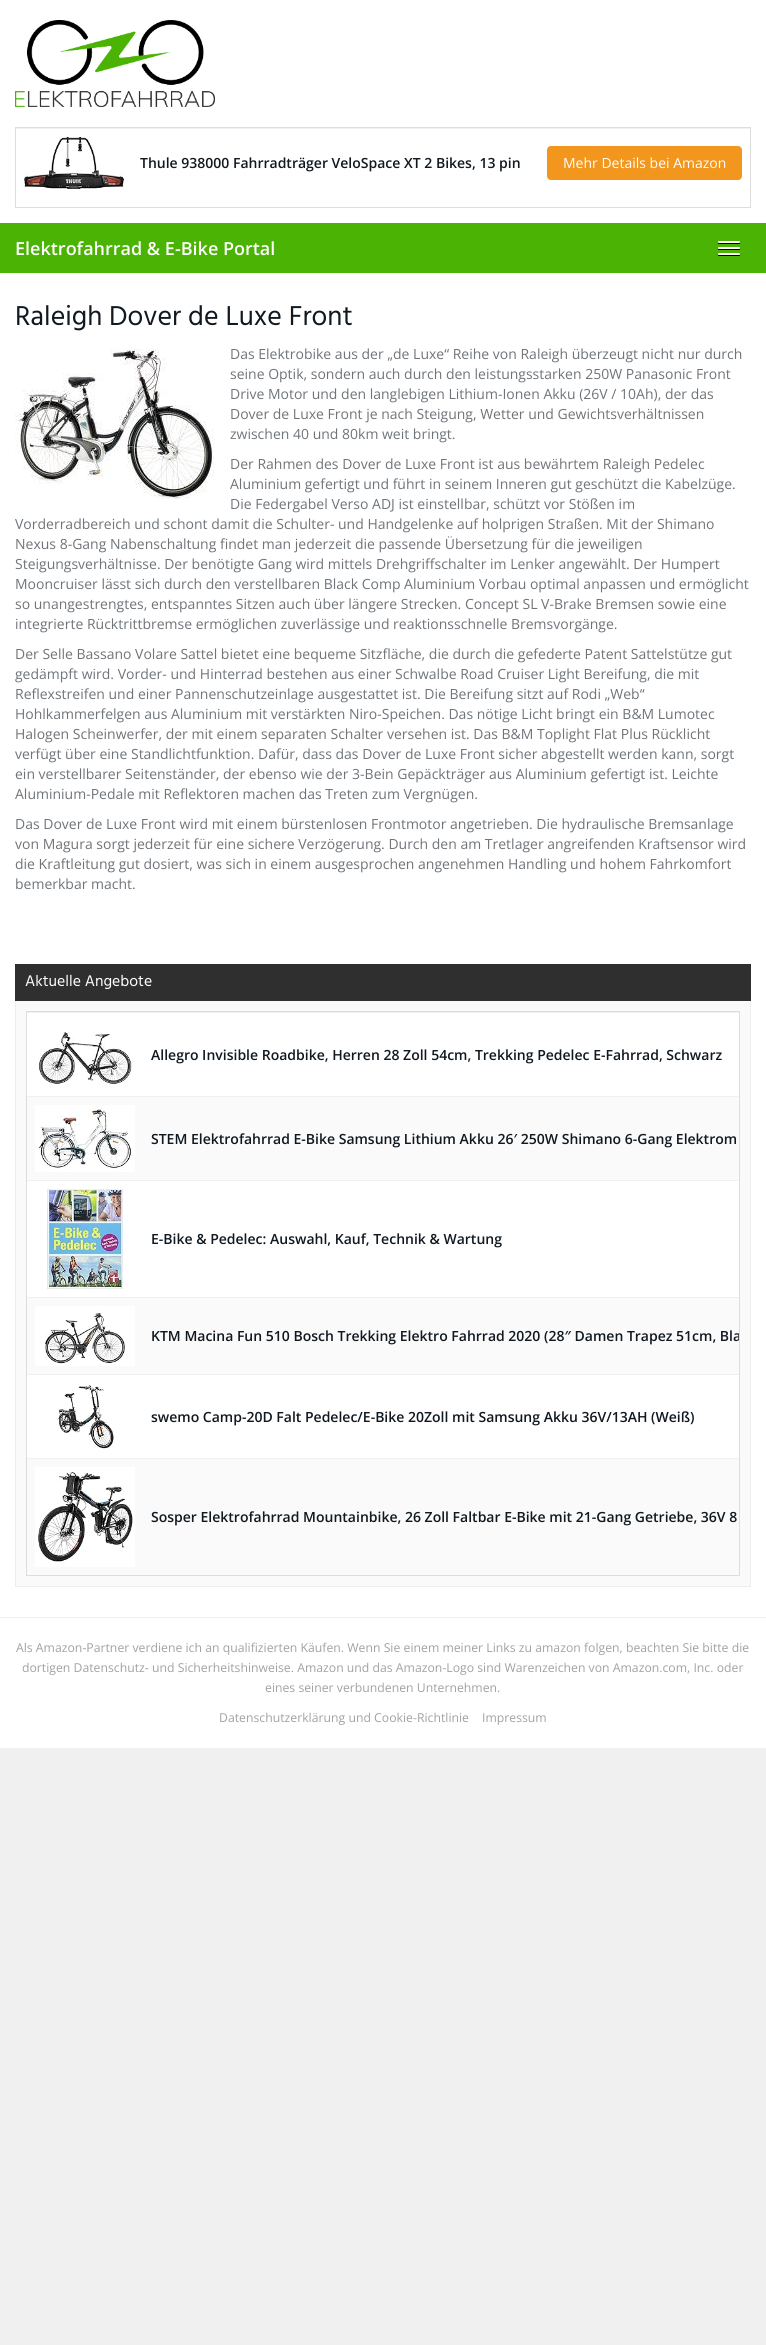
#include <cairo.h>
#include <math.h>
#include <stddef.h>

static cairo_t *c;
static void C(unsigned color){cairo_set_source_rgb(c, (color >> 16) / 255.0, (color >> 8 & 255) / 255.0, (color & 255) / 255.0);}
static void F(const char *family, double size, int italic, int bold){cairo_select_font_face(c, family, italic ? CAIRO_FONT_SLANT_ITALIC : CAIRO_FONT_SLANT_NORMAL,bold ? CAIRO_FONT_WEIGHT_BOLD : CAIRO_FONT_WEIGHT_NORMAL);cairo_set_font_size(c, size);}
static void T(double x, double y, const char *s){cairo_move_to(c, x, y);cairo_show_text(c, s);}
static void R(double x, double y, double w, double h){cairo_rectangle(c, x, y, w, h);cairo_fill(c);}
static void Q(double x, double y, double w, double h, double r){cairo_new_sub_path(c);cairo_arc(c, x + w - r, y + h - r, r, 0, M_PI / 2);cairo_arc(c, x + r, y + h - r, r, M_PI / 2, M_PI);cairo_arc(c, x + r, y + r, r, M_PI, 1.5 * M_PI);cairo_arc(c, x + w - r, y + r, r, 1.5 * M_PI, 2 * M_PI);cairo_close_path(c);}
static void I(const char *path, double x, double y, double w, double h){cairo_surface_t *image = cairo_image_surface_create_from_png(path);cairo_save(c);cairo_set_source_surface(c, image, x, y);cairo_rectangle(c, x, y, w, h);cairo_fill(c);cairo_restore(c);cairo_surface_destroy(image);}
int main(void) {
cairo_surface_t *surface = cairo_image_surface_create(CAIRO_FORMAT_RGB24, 766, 2345);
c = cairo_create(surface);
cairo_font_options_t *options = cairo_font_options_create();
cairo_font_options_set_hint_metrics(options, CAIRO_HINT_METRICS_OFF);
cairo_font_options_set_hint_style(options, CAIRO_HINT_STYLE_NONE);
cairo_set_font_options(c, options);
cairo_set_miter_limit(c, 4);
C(0xf0f0f0);
cairo_paint(c);
C(0xffffff);
R(0,0,766,223);
I("1.png",15,20,200,87);
cairo_rectangle(c,15.5,127.5,735,80);
C(0xdddddd);
cairo_set_line_width(c,1);
cairo_stroke(c);
I("2.png",24,137,100,52);
F("Open Sans SemiBold",14,0,0);
C(0x101820);
T(140,168,"Thule 938000 Fahrradträger VeloSpace XT 2 Bikes, 13 pin");
C(0xf0f0f0);
R(16,128,734,1);
C(0xf3961d);
Q(547.5,146.5,194,33,3.5);
cairo_fill_preserve(c);
cairo_stroke(c);
F("Open Sans",14,0,0);
C(0xffffff);
T(563,168,"Mehr Details bei Amazon");
C(0x4ab304);
R(0,223,766,50);
F("Open Sans SemiBold",18,0,0);
C(0xffffff);
T(15,255,"Elektrofahrrad & E-Bike Portal");
C(0x000000);
cairo_new_path(c);
cairo_move_to(c,718,242.5);
cairo_curve_to(c,717,244.5,720,244,722.5,244);
cairo_line_to(c,735.5,244);
cairo_curve_to(c,738,244,741,244.5,740,242.5);
cairo_line_to(c,739,243);
cairo_line_to(c,719,243);
cairo_close_path(c);
cairo_fill(c);
C(0xffffff);
Q(718,241,22,2,1);
cairo_fill(c);
C(0x000000);
cairo_new_path(c);
cairo_move_to(c,718,248.5);
cairo_curve_to(c,717,250.5,720,250,722.5,250);
cairo_line_to(c,735.5,250);
cairo_curve_to(c,738,250,741,250.5,740,248.5);
cairo_line_to(c,739,249);
cairo_line_to(c,719,249);
cairo_close_path(c);
cairo_fill(c);
C(0xffffff);
Q(718,247,22,2,1);
cairo_fill(c);
C(0x000000);
cairo_new_path(c);
cairo_move_to(c,718,254.5);
cairo_curve_to(c,717,256.5,720,256,722.5,256);
cairo_line_to(c,735.5,256);
cairo_curve_to(c,738,256,741,256.5,740,254.5);
cairo_line_to(c,739,255);
cairo_line_to(c,719,255);
cairo_close_path(c);
cairo_fill(c);
C(0xffffff);
Q(718,253,22,2,1);
cairo_fill(c);
R(0,273,766,1344);
F("Hind",28,0,0);
C(0x101820);
T(15,325,"Raleigh Dover de Luxe Front");
I("3.png",15,349,200,150);
F("Open Sans",14,0,0);
C(0x6f7479);
T(230,359,"Das Elektrobike aus der „de Luxe“ Reihe von Raleigh überzeugt nicht nur durch");
T(230,379,"seine Optik, sondern auch durch den leistungsstarken 250W Panasonic Front");
T(230,399,"Drive Motor und den langlebigen Lithium-Ionen Akku (26V / 10Ah), der das");
T(230,419,"Dover de Luxe Front je nach Steigung, Wetter und Gewichtsverhältnissen");
T(230,439,"zwischen 40 und 80km weit bringt.");
T(230,469,"Der Rahmen des Dover de Luxe Front ist aus bewährtem Raleigh Pedelec");
T(230,489,"Aluminium gefertigt und führt in seinem Inneren gut geschützt die Kabelzüge.");
T(230,509,"Die Federgabel Verso ADJ ist einstellbar, schützt vor Stößen im");
T(15,529,"Vorderradbereich und schont damit die Schulter- und Handgelenke auf holprigen Straßen. Mit der Shimano");
T(15,549,"Nexus 8-Gang Nabenschaltung findet man jederzeit die passende Übersetzung für die jeweiligen");
T(15,569,"Steigungsverhältnisse. Der benötigte Gang wird mittels Drehgriffschalter im Lenker angewählt. Der Humpert");
T(15,589,"Mooncruiser lässt sich durch den verstellbaren Black Comp Aluminium Vorbau optimal anpassen und ermöglicht");
T(15,609,"so unangestrengtes, entspanntes Sitzen auch über längere Strecken. Concept SL V-Brake Bremsen sowie eine");
T(15,629,"integrierte Rücktrittbremse ermöglichen zuverlässige und reaktionsschnelle Bremsvorgänge.");
T(15,659,"Der Selle Bassano Volare Sattel bietet eine bequeme Sitzfläche, die durch die gefederte Patent Sattelstütze gut");
T(15,679,"gedämpft wird. Vorder- und Hinterrad bestehen aus einer Schwalbe Road Cruiser Light Bereifung, die mit");
T(15,699,"Reflexstreifen und einer Pannenschutzeinlage ausgestattet ist. Die Bereifung sitzt auf Rodi „Web“");
T(15,719,"Hohlkammerfelgen aus Aluminium mit verstärkten Niro-Speichen. Das nötige Licht bringt ein B&M Lumotec");
T(15,739,"Halogen Scheinwerfer, der mit einem separaten Schalter versehen ist. Das B&M Toplight Flat Plus Rücklicht");
T(15,759,"verfügt über eine Standlichtfunktion. Dafür, dass das Dover de Luxe Front sicher abgestellt werden kann, sorgt");
T(15,779,"ein verstellbarer Seitenständer, der ebenso wie der 3-Bein Gepäckträger aus Aluminium gefertigt ist. Leichte");
T(15,799,"Aluminium-Pedale mit Reflektoren machen das Treten zum Vergnügen.");
T(15,829,"Das Dover de Luxe Front wird mit einem bürstenlosen Frontmotor angetrieben. Die hydraulische Bremsanlage");
T(15,849,"von Magura sorgt jederzeit für eine sichere Verzögerung. Durch den am Tretlager angreifenden Kraftsensor wird");
T(15,869,"die Kraftleitung gut dosiert, was sich in einem ausgesprochen angenehmen Handling und hohem Fahrkomfort");
T(15,889,"bemerkbar macht.");
C(0xfafafa);
R(16,1001,734,585);
cairo_rectangle(c,15.5,964.5,735,622);
C(0xeeeeee);
cairo_stroke(c);
C(0x2f2f2f);
R(15,964,736,37);
F("Hind",15.75,0,0);
C(0xffffff);
T(25,986,"Aktuelle Angebote");
cairo_rectangle(c,26.5,1011.5,713,564);
C(0xdddddd);
cairo_stroke(c);
C(0xffffff);
R(27,1013,712,83);
I("4.png",39,1032,93,53);
C(0xf0f0f0);
R(27,1012,712,1);
F("Open Sans SemiBold",14,0,0);
C(0x101820);
T(151,1060,"Allegro Invisible Roadbike, Herren 28 Zoll 54cm, Trekking Pedelec E-Fahrrad, Schwarz");
I("5.png",35,1105,100,67);
C(0xf0f0f0);
R(27,1096,712,1);
C(0x101820);
T(151,1144,"STEM Elektrofahrrad E-Bike Samsung Lithium Akku 26′ 250W Shimano 6-Gang Elektrom");
C(0xffffff);
R(27,1181,712,116);
I("6.png",47,1189,76,100);
C(0xf0f0f0);
R(27,1180,712,1);
C(0x101820);
T(151,1244,"E-Bike & Pedelec: Auswahl, Kauf, Technik & Wartung");
I("7.png",35,1306,100,60);
C(0xf0f0f0);
R(27,1297,712,1);
cairo_save(c);
cairo_rectangle(c,27,1012,712,563);
cairo_clip(c);
C(0x101820);
T(151,1341,"KTM Macina Fun 510 Bosch Trekking Elektro Fahrrad 2020 (28″ Damen Trapez 51cm, Bla");
cairo_restore(c);
C(0xffffff);
R(27,1375,712,83);
I("8.png",56,1384,59,65);
C(0xf0f0f0);
R(27,1374,712,1);
C(0x101820);
T(151,1422,"swemo Camp-20D Falt Pedelec/E-Bike 20Zoll mit Samsung Akku 36V/13AH (Weiß)");
I("9.png",35,1467,100,100);
C(0xf0f0f0);
R(27,1458,712,1);
C(0x101820);
T(151,1522,"Sosper Elektrofahrrad Mountainbike, 26 Zoll Faltbar E-Bike mit 21-Gang Getriebe, 36V 8");
C(0xffffff);
R(0,1618,766,130);
F("Open Sans",12.25,0,0);
C(0x9fa2a5);
T(16,1652,"Als Amazon-Partner verdiene ich an qualifizierten Käufen. Wenn Sie einem meiner Links zu amazon folgen, beachten Sie bitte die");
T(22,1672,"dortigen Datenschutz- und Sicherheitshinweise. Amazon und das Amazon-Logo sind Warenzeichen von Amazon.com, Inc. oder");
T(265,1692,"eines seiner verbundenen Unternehmen.");
T(219,1722,"Datenschutzerklärung und Cookie-Richtlinie");
T(482,1722,"Impressum");
cairo_surface_write_to_png(surface, "o.png");
cairo_font_options_destroy(options);
cairo_destroy(c);
cairo_surface_destroy(surface);
return 0;
}
